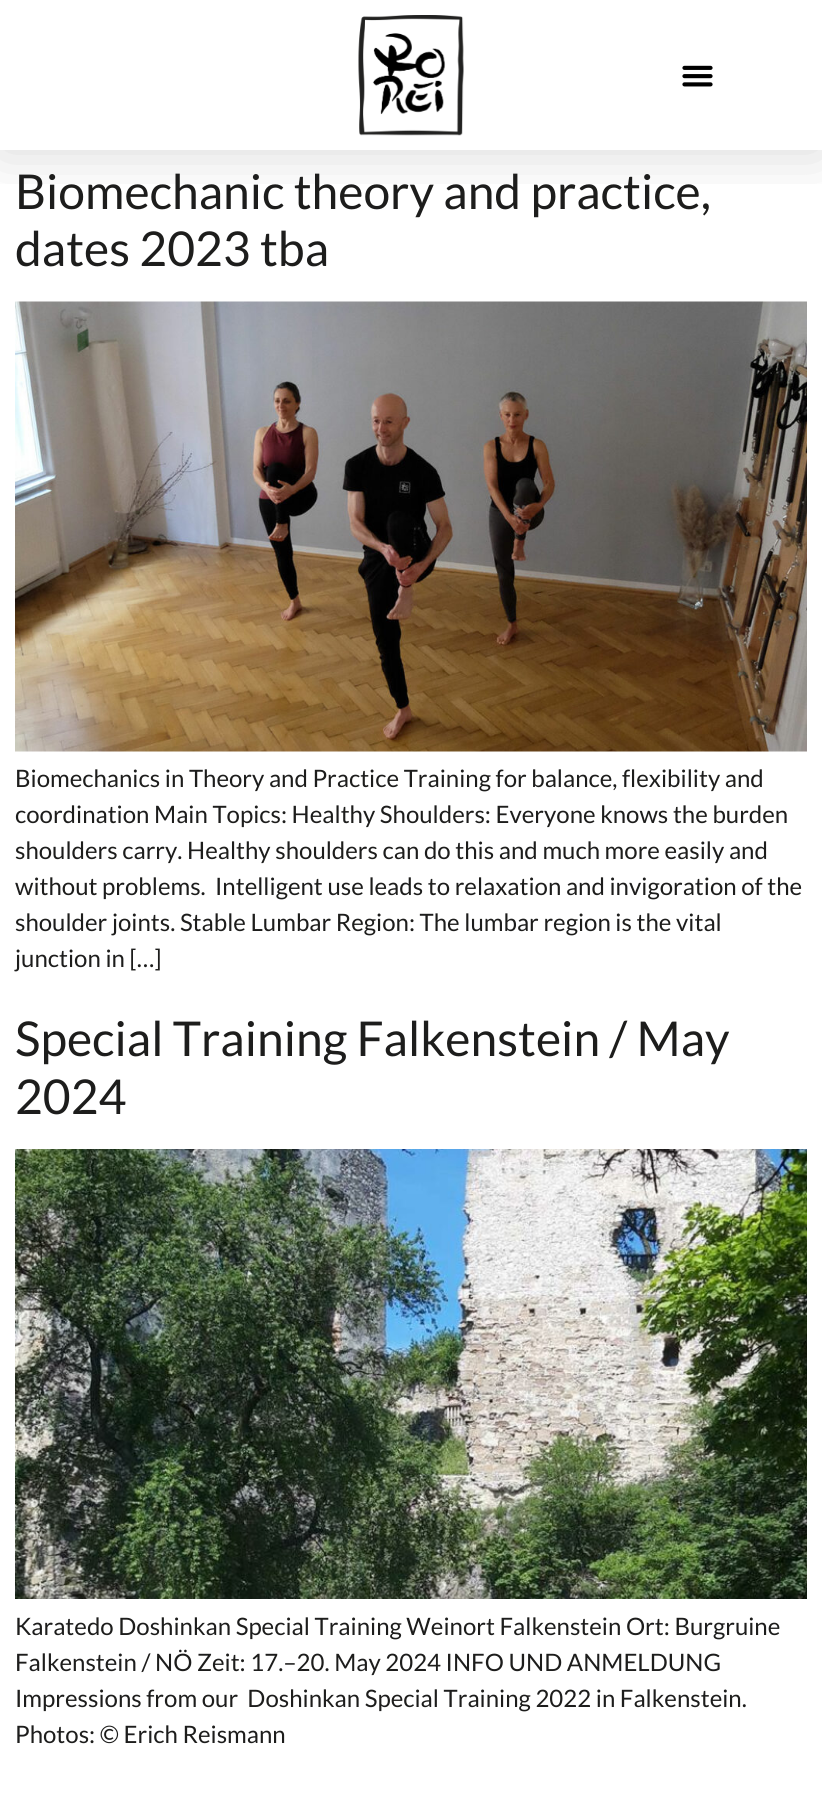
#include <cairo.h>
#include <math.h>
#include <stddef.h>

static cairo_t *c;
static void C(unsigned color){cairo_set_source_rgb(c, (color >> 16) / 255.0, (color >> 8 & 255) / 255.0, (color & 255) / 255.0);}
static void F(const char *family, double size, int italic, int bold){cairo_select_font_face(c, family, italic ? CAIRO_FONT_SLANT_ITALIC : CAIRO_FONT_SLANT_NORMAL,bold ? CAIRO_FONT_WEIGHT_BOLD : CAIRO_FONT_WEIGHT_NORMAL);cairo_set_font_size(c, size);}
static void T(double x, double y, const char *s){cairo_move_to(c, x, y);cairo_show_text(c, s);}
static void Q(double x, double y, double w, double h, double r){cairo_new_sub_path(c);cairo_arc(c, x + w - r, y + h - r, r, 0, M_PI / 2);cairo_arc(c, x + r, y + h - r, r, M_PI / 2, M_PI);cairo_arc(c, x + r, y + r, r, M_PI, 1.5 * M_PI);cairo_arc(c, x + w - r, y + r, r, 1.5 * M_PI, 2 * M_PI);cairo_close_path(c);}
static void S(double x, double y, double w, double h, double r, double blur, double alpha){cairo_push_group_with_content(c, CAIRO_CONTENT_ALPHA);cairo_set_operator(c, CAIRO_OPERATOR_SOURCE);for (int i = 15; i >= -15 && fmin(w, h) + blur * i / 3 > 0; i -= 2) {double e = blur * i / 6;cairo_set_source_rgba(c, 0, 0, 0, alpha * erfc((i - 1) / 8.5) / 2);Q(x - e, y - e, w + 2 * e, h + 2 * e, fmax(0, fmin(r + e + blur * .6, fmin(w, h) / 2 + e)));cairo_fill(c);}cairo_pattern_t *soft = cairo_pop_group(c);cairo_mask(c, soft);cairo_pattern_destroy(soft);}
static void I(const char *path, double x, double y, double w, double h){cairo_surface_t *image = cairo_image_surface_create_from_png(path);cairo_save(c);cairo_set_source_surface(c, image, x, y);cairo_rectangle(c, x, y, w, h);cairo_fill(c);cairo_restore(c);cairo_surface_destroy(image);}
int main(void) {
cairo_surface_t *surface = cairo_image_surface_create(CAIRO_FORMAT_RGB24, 822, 1807);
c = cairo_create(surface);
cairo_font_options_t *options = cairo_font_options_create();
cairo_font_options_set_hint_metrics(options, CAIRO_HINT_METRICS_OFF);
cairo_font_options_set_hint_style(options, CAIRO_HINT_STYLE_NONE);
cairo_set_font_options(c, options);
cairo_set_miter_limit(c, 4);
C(0xffffff);
cairo_paint(c);
cairo_save(c);
cairo_rectangle(c,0,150,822,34);
cairo_clip(c);
C(0x000000);
S(0,0,822,150,0,30,.16);
cairo_restore(c);
I("1.png",358,15,106,121);
I("2.png",682,65,31,22);
F("Lato",48,0,0);
C(0x1d1d1c);
T(15,209,"Biomechanic theory and practice,");
T(15,266,"dates 2023 tba");
I("3.png",15,301,792,451);
F("Lato",24,0,0);
T(15,787,"Biomechanics in Theory and Practice Training for balance, flexibility and");
T(15,823,"coordination Main Topics: Healthy Shoulders: Everyone knows the burden");
T(15,859,"shoulders carry. Healthy shoulders can do this and much more easily and");
T(15,895,"without problems.  Intelligent use leads to relaxation and invigoration of the");
T(15,931,"shoulder joints. Stable Lumbar Region: The lumbar region is the vital");
T(15,967,"junction in […]");
F("Lato",48,0,0);
T(15,1056,"Special Training Falkenstein / May");
T(15,1114,"2024");
I("4.png",15,1149,792,450);
F("Lato",24,0,0);
T(15,1635,"Karatedo Doshinkan Special Training Weinort Falkenstein Ort: Burgruine");
T(15,1671,"Falkenstein / NÖ Zeit: 17.–20. May 2024 INFO UND ANMELDUNG");
T(15,1707,"Impressions from our  Doshinkan Special Training 2022 in Falkenstein.");
T(15,1743,"Photos: © Erich Reismann");
cairo_surface_write_to_png(surface, "o.png");
cairo_font_options_destroy(options);
cairo_destroy(c);
cairo_surface_destroy(surface);
return 0;
}
